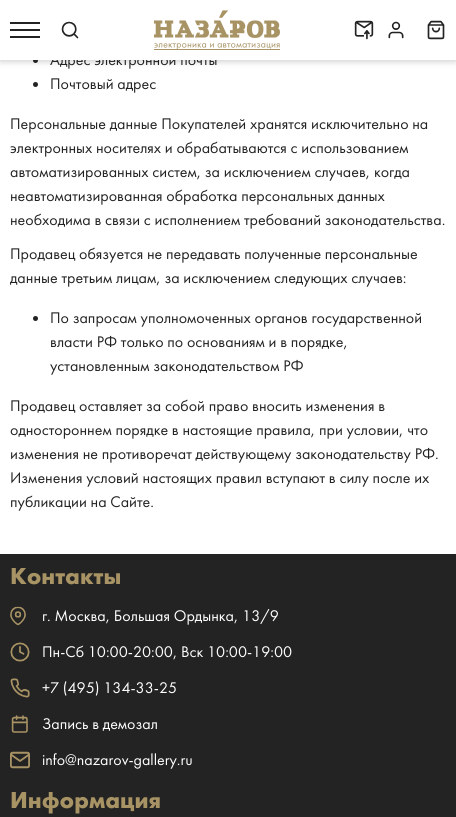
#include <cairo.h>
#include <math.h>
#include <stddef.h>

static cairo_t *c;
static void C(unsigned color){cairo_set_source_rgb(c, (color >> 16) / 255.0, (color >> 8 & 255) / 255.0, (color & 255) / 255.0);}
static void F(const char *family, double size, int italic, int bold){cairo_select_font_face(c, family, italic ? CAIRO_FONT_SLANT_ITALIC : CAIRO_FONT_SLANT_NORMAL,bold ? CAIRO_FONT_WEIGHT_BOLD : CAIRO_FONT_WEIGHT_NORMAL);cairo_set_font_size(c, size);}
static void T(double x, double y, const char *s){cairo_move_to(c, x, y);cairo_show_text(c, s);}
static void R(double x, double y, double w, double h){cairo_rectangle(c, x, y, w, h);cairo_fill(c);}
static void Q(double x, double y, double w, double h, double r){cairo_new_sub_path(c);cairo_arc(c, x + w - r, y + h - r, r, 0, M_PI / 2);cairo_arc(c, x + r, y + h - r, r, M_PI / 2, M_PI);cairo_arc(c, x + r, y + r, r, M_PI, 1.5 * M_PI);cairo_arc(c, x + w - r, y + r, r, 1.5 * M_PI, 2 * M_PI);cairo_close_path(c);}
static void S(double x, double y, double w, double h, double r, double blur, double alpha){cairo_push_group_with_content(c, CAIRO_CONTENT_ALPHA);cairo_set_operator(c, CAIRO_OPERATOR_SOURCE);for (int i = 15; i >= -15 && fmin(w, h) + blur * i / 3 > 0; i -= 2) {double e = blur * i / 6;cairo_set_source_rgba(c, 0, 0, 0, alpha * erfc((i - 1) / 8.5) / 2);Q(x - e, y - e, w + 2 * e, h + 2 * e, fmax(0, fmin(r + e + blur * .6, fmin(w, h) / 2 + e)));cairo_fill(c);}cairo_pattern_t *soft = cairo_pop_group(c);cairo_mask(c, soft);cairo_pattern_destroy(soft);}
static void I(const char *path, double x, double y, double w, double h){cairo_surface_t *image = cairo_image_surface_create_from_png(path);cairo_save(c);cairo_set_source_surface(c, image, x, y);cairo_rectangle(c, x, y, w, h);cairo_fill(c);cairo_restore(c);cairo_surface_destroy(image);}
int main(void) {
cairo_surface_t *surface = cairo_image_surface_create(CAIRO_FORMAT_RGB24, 456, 817);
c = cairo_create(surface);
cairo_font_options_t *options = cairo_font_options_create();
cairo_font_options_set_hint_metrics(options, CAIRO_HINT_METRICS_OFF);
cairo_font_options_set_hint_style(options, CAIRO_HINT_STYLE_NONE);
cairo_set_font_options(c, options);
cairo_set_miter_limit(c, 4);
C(0xffffff);
cairo_paint(c);
C(0x232323);
cairo_arc(c,35.5,60.5,2.5,0,2 * M_PI);
cairo_fill(c);
C(0x232323);
S(0,2,456,60,0,3,.2);
F("Futura PT",16,0,0);
C(0x232323);
T(50,65,"Адрес электронной почты");
C(0xffffff);
R(0,0,456,60);
I("1.png",10,22,30,16);
I("2.png",61,21,18,18);
C(0xa89365);
R(154,49,126,1);
I("3.png",154,10,126,39);
I("4.png",354,20,20,20);
I("5.png",388,21,16,18);
I("6.png",427,20,18,20);
C(0x232323);
cairo_arc(c,35.5,84.5,2.5,0,2 * M_PI);
cairo_fill(c);
T(50,89,"Почтовый адрес");
T(10,129,"Персональные данные Покупателей хранятся исключительно на");
T(10,153,"электронных носителях и обрабатываются с использованием");
T(10,177,"автоматизированных систем, за исключением случаев, когда");
T(10,201,"неавтоматизированная обработка персональных данных");
T(10,225,"необходима в связи с исполнением требований законодательства.");
T(10,259,"Продавец обязуется не передавать полученные персональные");
T(10,283,"данные третьим лицам, за исключением следующих случаев:");
cairo_new_path(c);
cairo_arc(c,35.5,318.5,2.5,0,2 * M_PI);
cairo_fill(c);
T(50,323,"По запросам уполномоченных органов государственной");
T(50,347,"власти РФ только по основаниям и в порядке,");
T(50,371,"установленным законодательством РФ");
T(10,411,"Продавец оставляет за собой право вносить изменения в");
T(10,435,"одностороннем порядке в настоящие правила, при условии, что");
T(10,459,"изменения не противоречат действующему законодательству РФ.");
T(10,483,"Изменения условий настоящих правил вступают в силу после их");
T(10,507,"публикации на Сайте.");
R(0,554,456,263);
F("Futura PT",24,0,1);
C(0xa89365);
T(10,584,"Контакты");
I("7.png",10,606,16,20);
F("Futura PT",16,0,0);
C(0xffffff);
T(42,621,"г. Москва, Большая Ордынка, 13/9");
I("8.png",10,642,20,20);
T(42,657,"Пн-Сб 10:00-20:00, Вск 10:00-19:00");
I("9.png",10,678,20,20);
T(42,693,"+7 (495) 134-33-25");
I("10.png",11,715,17,18);
T(42,729,"Запись в демозал");
I("11.png",10,751,20,18);
T(42,765,"info@nazarov-gallery.ru");
F("Futura PT",24,0,1);
C(0xa89365);
T(10,808,"Информация");
cairo_surface_write_to_png(surface, "o.png");
cairo_font_options_destroy(options);
cairo_destroy(c);
cairo_surface_destroy(surface);
return 0;
}
